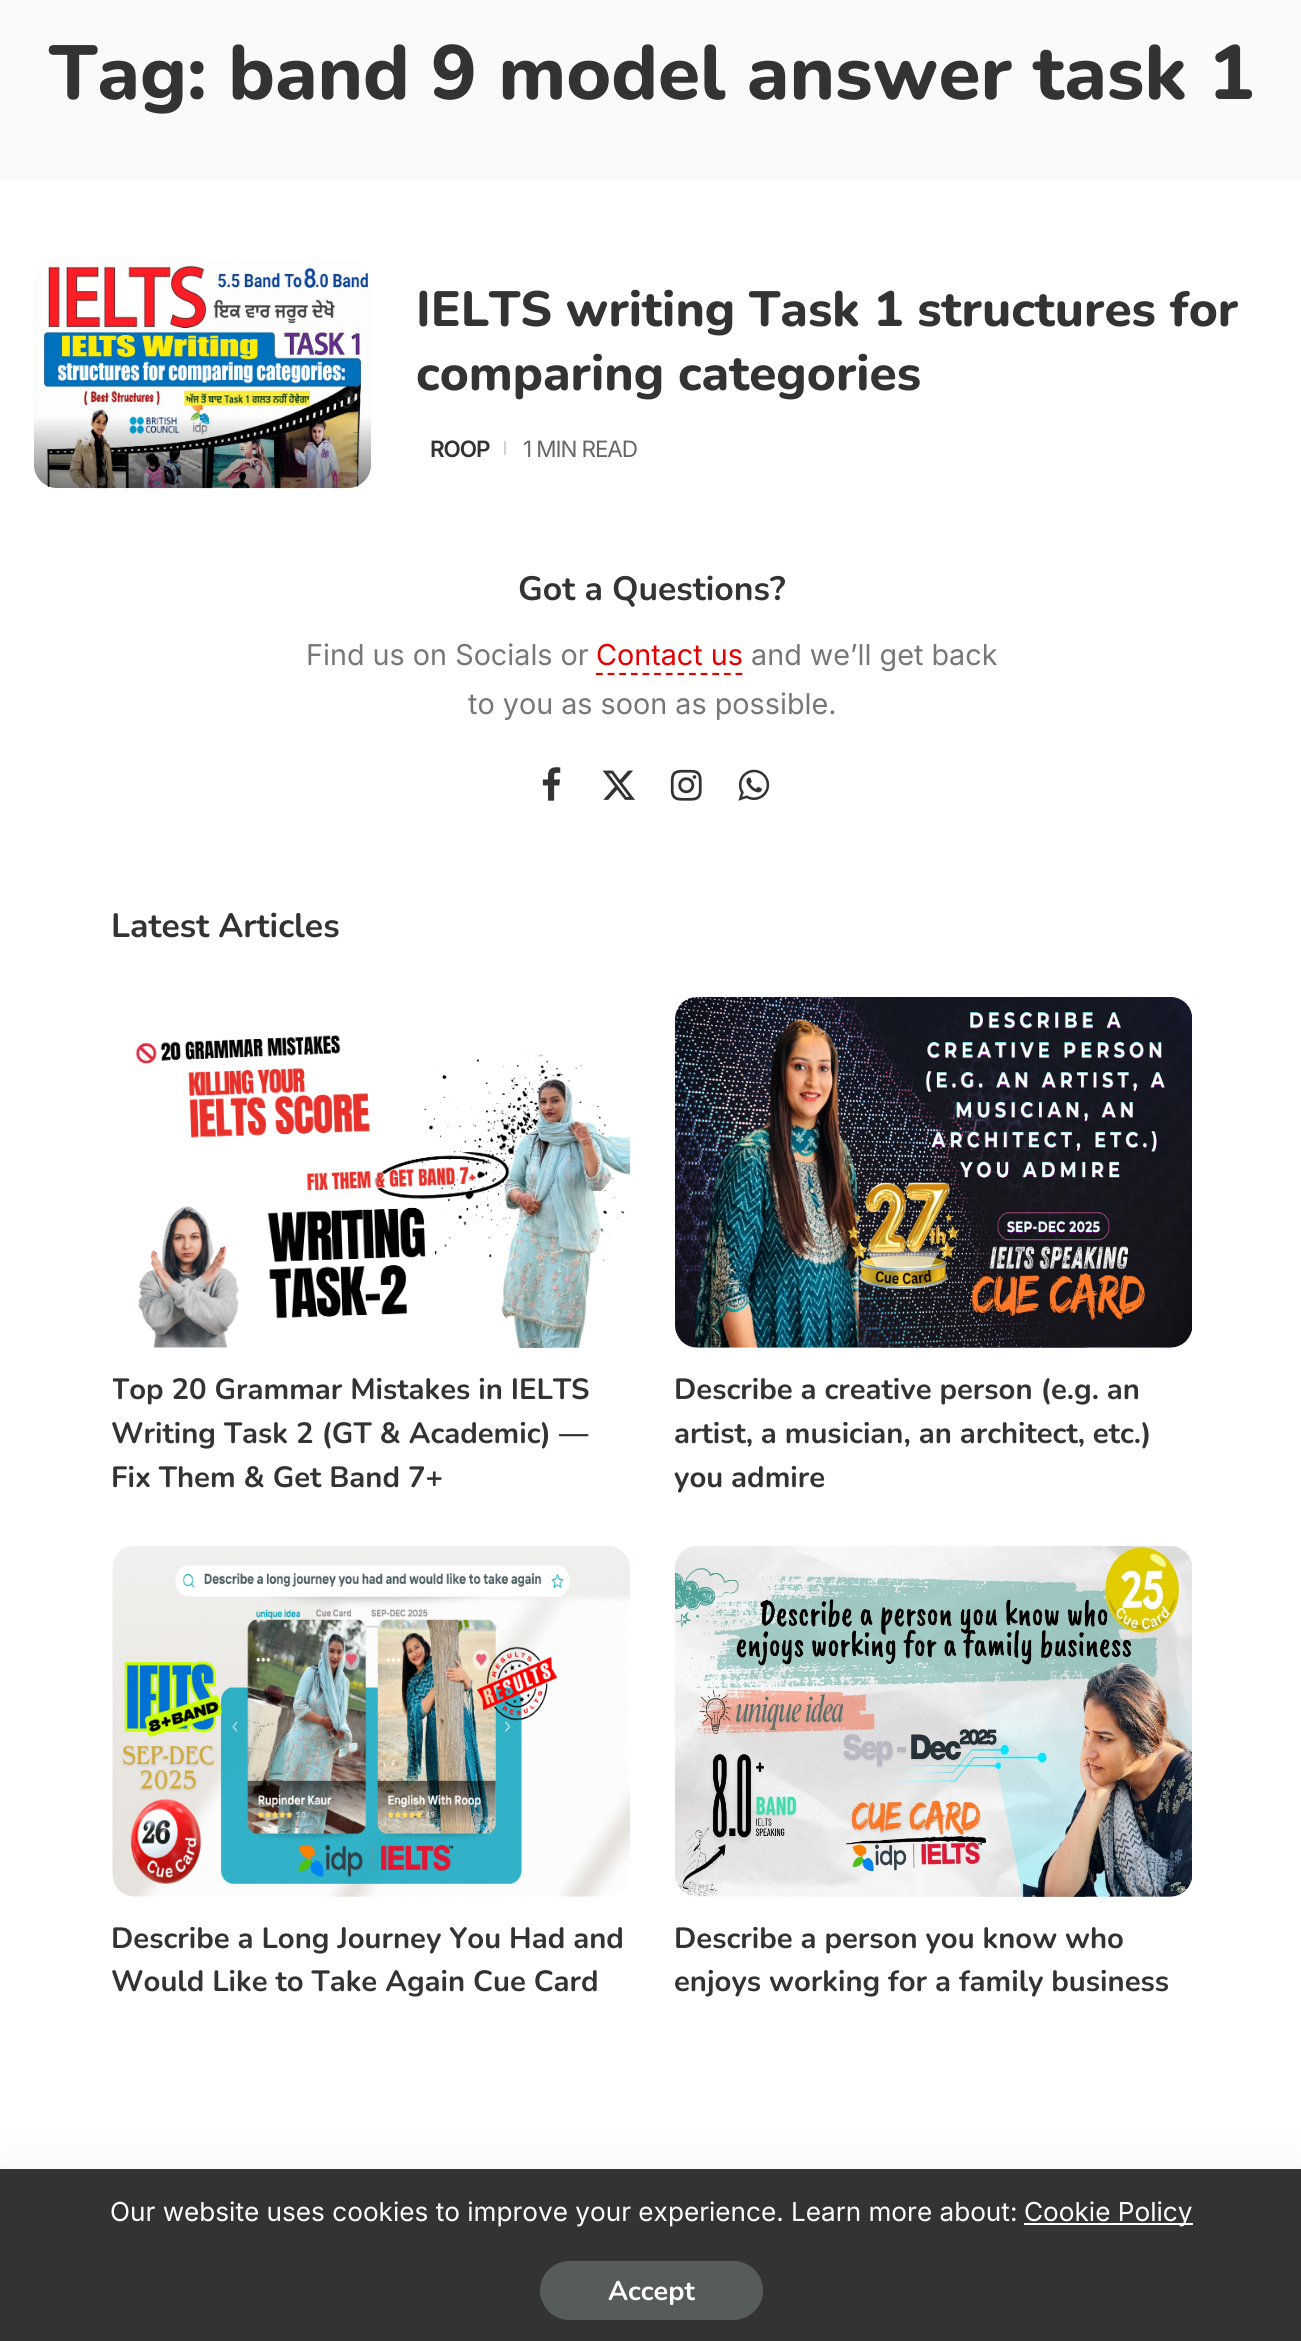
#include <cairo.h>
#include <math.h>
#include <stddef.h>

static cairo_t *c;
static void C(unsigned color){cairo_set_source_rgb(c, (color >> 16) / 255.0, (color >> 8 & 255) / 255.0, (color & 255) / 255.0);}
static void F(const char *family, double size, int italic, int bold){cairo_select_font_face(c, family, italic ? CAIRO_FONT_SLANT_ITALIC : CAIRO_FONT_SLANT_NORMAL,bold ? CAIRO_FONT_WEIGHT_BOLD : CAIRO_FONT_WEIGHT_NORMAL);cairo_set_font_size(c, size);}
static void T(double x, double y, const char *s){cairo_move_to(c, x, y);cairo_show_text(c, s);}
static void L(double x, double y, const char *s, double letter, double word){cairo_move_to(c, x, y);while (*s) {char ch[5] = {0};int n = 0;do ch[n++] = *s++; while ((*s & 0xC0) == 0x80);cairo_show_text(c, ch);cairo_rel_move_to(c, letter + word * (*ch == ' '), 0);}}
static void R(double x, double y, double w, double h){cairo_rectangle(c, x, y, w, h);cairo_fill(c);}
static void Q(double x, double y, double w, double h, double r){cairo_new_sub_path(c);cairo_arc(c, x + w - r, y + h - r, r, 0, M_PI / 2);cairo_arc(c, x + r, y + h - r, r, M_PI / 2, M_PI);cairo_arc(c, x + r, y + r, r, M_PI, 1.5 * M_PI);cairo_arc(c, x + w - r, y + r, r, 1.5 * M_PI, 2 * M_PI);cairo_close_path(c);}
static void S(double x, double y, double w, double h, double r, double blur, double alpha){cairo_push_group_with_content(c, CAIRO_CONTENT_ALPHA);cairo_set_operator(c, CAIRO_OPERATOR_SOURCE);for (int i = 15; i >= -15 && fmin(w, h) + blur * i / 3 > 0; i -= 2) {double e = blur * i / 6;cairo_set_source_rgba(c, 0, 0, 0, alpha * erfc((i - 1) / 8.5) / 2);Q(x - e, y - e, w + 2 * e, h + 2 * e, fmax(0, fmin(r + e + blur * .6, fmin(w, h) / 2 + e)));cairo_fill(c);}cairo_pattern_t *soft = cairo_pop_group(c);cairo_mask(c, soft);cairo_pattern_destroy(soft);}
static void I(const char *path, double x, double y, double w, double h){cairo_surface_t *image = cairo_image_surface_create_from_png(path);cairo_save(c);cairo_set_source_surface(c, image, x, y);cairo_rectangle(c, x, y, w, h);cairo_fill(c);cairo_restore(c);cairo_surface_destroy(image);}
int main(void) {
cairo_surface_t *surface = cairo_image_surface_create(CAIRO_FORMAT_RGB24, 1301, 2341);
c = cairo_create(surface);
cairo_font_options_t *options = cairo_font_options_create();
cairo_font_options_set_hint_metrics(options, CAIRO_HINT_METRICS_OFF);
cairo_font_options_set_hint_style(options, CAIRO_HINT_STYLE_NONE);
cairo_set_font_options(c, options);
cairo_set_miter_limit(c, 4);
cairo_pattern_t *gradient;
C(0xffffff);
cairo_paint(c);
C(0xfafafa);
R(0,0,1301,180);
F("Nunito ExtraBold",76.5,0,0);
C(0x333333);
T(49,99,"Tag: band 9 model answer task 1");
I("1.png",34,259,337,230);
gradient = cairo_pattern_create_linear(203,416,203,488);
cairo_pattern_add_color_stop_rgba(gradient,0,0,0,0,0);
cairo_pattern_add_color_stop_rgba(gradient,1,0,0,0,.5);
cairo_set_source(c,gradient);
cairo_pattern_destroy(gradient);
cairo_new_path(c);
cairo_move_to(c,34,416);
cairo_line_to(c,371,416);
cairo_line_to(c,371,465);
cairo_curve_to(c,371,477.5,360.5,488,348,488);
cairo_line_to(c,57,488);
cairo_curve_to(c,44.5,488,34,477.5,34,465);
cairo_close_path(c);
cairo_fill(c);
F("Nunito ExtraBold",49.5,0,0);
C(0x333333);
T(416,326,"IELTS writing Task 1 structures for");
T(416,390,"comparing categories");
F("Inter SemiBold",22.5,0,0);
L(430,457,"ROOP",-1.1,0);
C(0xd1d1d1);
R(504,441,2,14);
F("Inter",22.5,0,0);
C(0x666666);
L(523,457,"1 MIN READ",-1.1,0);
F("Nunito",33.75,0,1);
C(0x333333);
T(518,600,"Got a Questions?");
F("Inter",28.75,0,0);
C(0x777777);
T(306,665,"Find us on Socials or");
C(0xe40001);
T(596,665,"Contact us");
cairo_new_path(c);
cairo_move_to(c,596,674);
cairo_line_to(c,742.5,674);
cairo_set_line_width(c,2.2);
cairo_set_dash(c,(double[]){6.75,4.88},2,0);
cairo_stroke(c);
C(0x777777);
T(751,665,"and we’ll get back");
T(468,714,"to you as soon as possible.");
I("2.png",542,767,19,34);
I("3.png",602,770,33,30);
I("4.png",670,769,32,32);
I("5.png",738,769,32,32);
F("Nunito",33.75,0,1);
C(0x333333);
T(111,937,"Latest Articles");
I("6.png",135,1035,495,313);
cairo_save(c);
cairo_rectangle(c,113,905,1080,1102);
cairo_clip(c);
F("Nunito",29.25,0,1);
T(111,1399,"Top 20 Grammar Mistakes in IELTS");
cairo_restore(c);
F("Nunito",29.25,0,1);
T(111,1443,"Writing Task 2 (GT & Academic) —");
T(111,1487,"Fix Them & Get Band 7+");
I("7.png",675,997,517,351);
T(674,1399,"Describe a creative person (e.g. an");
T(674,1443,"artist, a musician, an architect, etc.)");
T(674,1487,"you admire");
I("8.png",112,1546,518,351);
T(111,1948,"Describe a Long Journey You Had and");
T(111,1991,"Would Like to Take Again Cue Card");
I("9.png",675,1546,517,351);
T(674,1948,"Describe a person you know who");
T(674,1991,"enjoys working for a family business");
C(0x000000);
S(0,2178,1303,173,0,34,.07);
C(0x333333);
R(0,2169,1301,172);
F("Inter",26.15,0,0);
C(0xffffff);
T(110,2221,"Our website uses cookies to improve your experience. Learn more about:");
R(1024,2223,169,2);
T(1024,2221,"Cookie Policy");
C(0x565c5c);
Q(540,2261,223,59,29.5);
cairo_fill(c);
F("Nunito",27,0,1);
C(0xffffff);
T(608,2300,"Accept");
cairo_surface_write_to_png(surface, "o.png");
cairo_font_options_destroy(options);
cairo_destroy(c);
cairo_surface_destroy(surface);
return 0;
}
